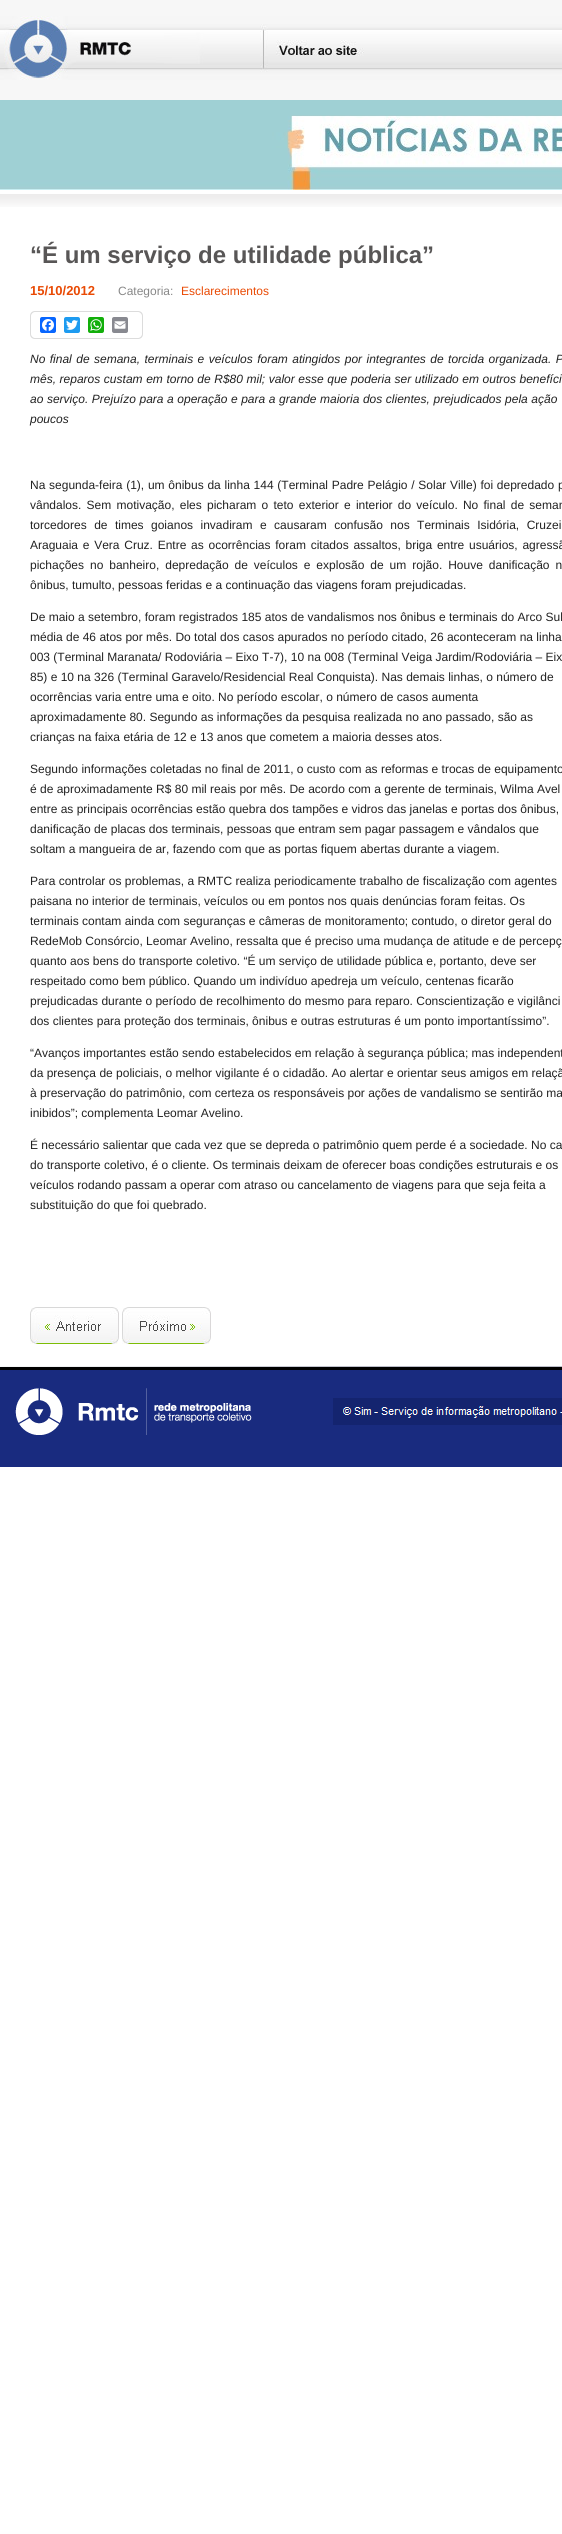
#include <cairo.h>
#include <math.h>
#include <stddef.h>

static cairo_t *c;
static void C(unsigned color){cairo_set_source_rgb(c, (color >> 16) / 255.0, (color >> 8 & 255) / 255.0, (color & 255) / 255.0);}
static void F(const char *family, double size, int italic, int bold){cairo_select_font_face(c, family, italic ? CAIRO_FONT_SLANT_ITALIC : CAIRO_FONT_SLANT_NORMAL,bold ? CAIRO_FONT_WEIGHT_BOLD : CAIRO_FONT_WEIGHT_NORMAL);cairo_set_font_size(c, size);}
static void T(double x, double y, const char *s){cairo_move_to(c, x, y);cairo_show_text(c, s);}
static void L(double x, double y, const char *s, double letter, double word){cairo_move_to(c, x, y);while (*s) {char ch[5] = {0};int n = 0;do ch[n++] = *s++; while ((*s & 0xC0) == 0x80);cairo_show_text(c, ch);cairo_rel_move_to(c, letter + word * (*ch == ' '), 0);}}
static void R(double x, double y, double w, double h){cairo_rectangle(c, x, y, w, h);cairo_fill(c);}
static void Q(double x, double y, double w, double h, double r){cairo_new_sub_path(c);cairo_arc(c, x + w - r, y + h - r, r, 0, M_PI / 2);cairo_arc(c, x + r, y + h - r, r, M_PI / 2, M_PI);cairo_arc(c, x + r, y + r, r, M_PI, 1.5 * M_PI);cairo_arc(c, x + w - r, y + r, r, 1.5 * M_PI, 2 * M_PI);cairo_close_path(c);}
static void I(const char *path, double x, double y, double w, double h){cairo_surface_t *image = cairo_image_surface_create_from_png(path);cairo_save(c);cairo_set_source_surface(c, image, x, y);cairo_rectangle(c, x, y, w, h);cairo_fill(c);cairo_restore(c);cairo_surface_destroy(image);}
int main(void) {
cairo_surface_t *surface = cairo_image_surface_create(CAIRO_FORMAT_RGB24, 562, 2534);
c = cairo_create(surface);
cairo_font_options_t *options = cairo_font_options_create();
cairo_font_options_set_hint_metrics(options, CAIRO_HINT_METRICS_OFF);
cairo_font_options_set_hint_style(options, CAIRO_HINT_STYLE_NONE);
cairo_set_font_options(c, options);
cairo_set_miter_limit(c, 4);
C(0xffffff);
cairo_paint(c);
C(0xf7f7f7);
R(0,0,562,100);
I("1.png",0,16,562,64);
I("2.png",0,100,562,90);
I("3.png",0,194,562,13);
I("4.png",0,1366,562,1);
F("Liberation Sans",24,0,1);
C(0x585656);
T(30,263,"“É um serviço de utilidade pública”");
F("Liberation Sans",13,0,1);
C(0xe94a04);
T(30,295,"15/10/2012");
F("Liberation Sans",12,0,0);
C(0x888888);
T(118,295,"Categoria:");
C(0xe94a04);
T(181,295,"Esclarecimentos");
C(0xdcdcdc);
cairo_set_fill_rule(c,CAIRO_FILL_RULE_EVEN_ODD);
cairo_new_path(c);
cairo_move_to(c,35,311);
cairo_line_to(c,60,311);
cairo_line_to(c,60,339);
cairo_line_to(c,35,339);
cairo_curve_to(c,32,339,30,337,30,334);
cairo_line_to(c,30,316);
cairo_curve_to(c,30,313,32,311,35,311);
cairo_close_path(c);
cairo_move_to(c,35,312);
cairo_line_to(c,60,312);
cairo_line_to(c,60,338);
cairo_line_to(c,35,338);
cairo_curve_to(c,33,338,31,336,31,334);
cairo_line_to(c,31,316);
cairo_curve_to(c,31,314,33,312,35,312);
cairo_close_path(c);
cairo_fill(c);
R(60,311,48,1);
R(60,338,48,1);
cairo_new_path(c);
cairo_move_to(c,108,311);
cairo_line_to(c,138,311);
cairo_curve_to(c,141,311,143,313,143,316);
cairo_line_to(c,143,334);
cairo_curve_to(c,143,337,141,339,138,339);
cairo_line_to(c,108,339);
cairo_close_path(c);
cairo_move_to(c,108,312);
cairo_line_to(c,138,312);
cairo_curve_to(c,140,312,142,314,142,316);
cairo_line_to(c,142,334);
cairo_curve_to(c,142,336,140,338,138,338);
cairo_line_to(c,108,338);
cairo_close_path(c);
cairo_fill(c);
C(0x0866ff);
Q(40,317,16,16,2);
cairo_fill(c);
I("5.png",42,319,12,12);
C(0x1d9bf0);
Q(64,317,16,16,2);
cairo_fill(c);
I("6.png",66,320,12,10);
C(0x12af0a);
Q(88,317,16,16,2);
cairo_fill(c);
I("7.png",90,319,12,12);
C(0x888990);
Q(112,317,16,16,2);
cairo_fill(c);
I("8.png",114,321,12,8);
F("Liberation Sans",12,1,0);
C(0x222222);
L(30,363,"No final de semana, terminais e veículos foram atingidos por integrantes de torcida organizada. P",0,1.1);
L(30,383,"mês, reparos custam em torno de R$80 mil; valor esse que poderia ser utilizado em outros benefíci",0,.25);
L(30,403,"ao serviço. Prejuízo para a operação e para a grande maioria dos clientes, prejudicados pela ação",0,.25);
T(30,423,"poucos");
F("Liberation Sans",12,0,0);
L(30,489,"Na segunda-feira (1), um ônibus da linha 144 (Terminal Padre Pelágio / Solar Ville) foi depredado p",0,.4);
L(30,509,"vândalos. Sem motivação, eles picharam o teto exterior e interior do veículo. No final de seman",0,1.9);
L(30,529,"torcedores de times goianos invadiram e causaram confusão nos Terminais Isidória, Cruzei",0,4.1);
L(30,549,"Araguaia e Vera Cruz. Entre as ocorrências foram citados assaltos, briga entre usuários, agressã",0,1.4);
L(30,569,"pichações no banheiro, depredação de veículos e explosão de um rojão. Houve danificação n",0,2.6);
T(30,589,"ônibus, tumulto, pessoas feridas e a continuação das viagens foram prejudicadas.");
T(30,621,"De maio a setembro, foram registrados 185 atos de vandalismos nos ônibus e terminais do Arco Sul");
T(30,641,"média de 46 atos por mês. Do total dos casos apurados no período citado, 26 aconteceram na linha");
T(30,661,"003 (Terminal Maranata/ Rodoviária – Eixo T-7), 10 na 008 (Terminal Veiga Jardim/Rodoviária – Eix");
T(30,681,"85) e 10 na 326 (Terminal Garavelo/Residencial Real Conquista). Nas demais linhas, o número de");
T(30,701,"ocorrências varia entre uma e oito. No período escolar, o número de casos aumenta");
T(30,721,"aproximadamente 80. Segundo as informações da pesquisa realizada no ano passado, são as");
T(30,741,"crianças na faixa etária de 12 e 13 anos que cometem a maioria desses atos.");
T(30,773,"Segundo informações coletadas no final de 2011, o custo com as reformas e trocas de equipamento");
T(30,793,"é de aproximadamente R$ 80 mil reais por mês. De acordo com a gerente de terminais, Wilma Avel");
T(30,813,"entre as principais ocorrências estão quebra dos tampões e vidros das janelas e portas dos ônibus,");
T(30,833,"danificação de placas dos terminais, pessoas que entram sem pagar passagem e vândalos que");
T(30,853,"soltam a mangueira de ar, fazendo com que as portas fiquem abertas durante a viagem.");
T(30,885,"Para controlar os problemas, a RMTC realiza periodicamente trabalho de fiscalização com agentes");
T(30,905,"paisana no interior de terminais, veículos ou em pontos nos quais denúncias foram feitas. Os");
T(30,925,"terminais contam ainda com seguranças e câmeras de monitoramento; contudo, o diretor geral do");
T(30,945,"RedeMob Consórcio, Leomar Avelino, ressalta que é preciso uma mudança de atitude e de percepç");
T(30,965,"quanto aos bens do transporte coletivo. “É um serviço de utilidade pública e, portanto, deve ser");
T(30,985,"respeitado como bem público. Quando um indivíduo apedreja um veículo, centenas ficarão");
T(30,1005,"prejudicadas durante o período de recolhimento do mesmo para reparo. Conscientização e vigilânci");
T(30,1025,"dos clientes para proteção dos terminais, ônibus e outras estruturas é um ponto importantíssimo”.");
T(30,1057,"“Avanços importantes estão sendo estabelecidos em relação à segurança pública; mas independent");
T(30,1077,"da presença de policiais, o melhor vigilante é o cidadão. Ao alertar e orientar seus amigos em relaçã");
T(30,1097,"à preservação do patrimônio, com certeza os responsáveis por ações de vandalismo se sentirão ma");
T(30,1117,"inibidos”; complementa Leomar Avelino.");
T(30,1149,"É necessário salientar que cada vez que se depreda o patrimônio quem perde é a sociedade. No ca");
T(30,1169,"do transporte coletivo, é o cliente. Os terminais deixam de oferecer boas condições estruturais e os");
T(30,1189,"veículos rodando passam a operar com atraso ou cancelamento de viagens para que seja feita a");
T(30,1209,"substituição do que foi quebrado.");
I("9.png",30,1307,89,37);
I("10.png",122,1307,89,37);
C(0x192b7f);
R(0,1370,562,97);
C(0x000000);
R(0,1367,562,3);
I("11.png",15,1388,547,47);
cairo_surface_write_to_png(surface, "o.png");
cairo_font_options_destroy(options);
cairo_destroy(c);
cairo_surface_destroy(surface);
return 0;
}
